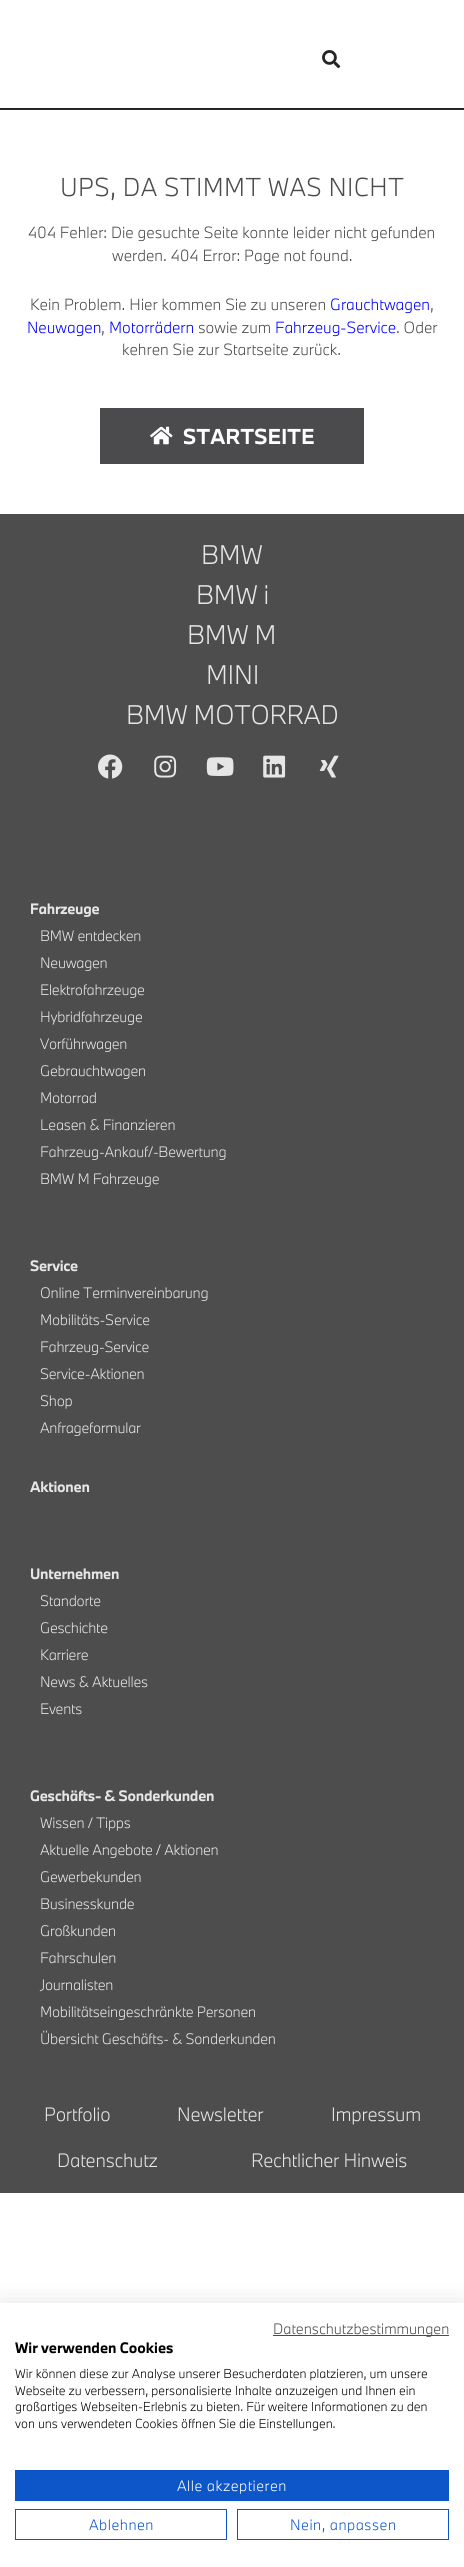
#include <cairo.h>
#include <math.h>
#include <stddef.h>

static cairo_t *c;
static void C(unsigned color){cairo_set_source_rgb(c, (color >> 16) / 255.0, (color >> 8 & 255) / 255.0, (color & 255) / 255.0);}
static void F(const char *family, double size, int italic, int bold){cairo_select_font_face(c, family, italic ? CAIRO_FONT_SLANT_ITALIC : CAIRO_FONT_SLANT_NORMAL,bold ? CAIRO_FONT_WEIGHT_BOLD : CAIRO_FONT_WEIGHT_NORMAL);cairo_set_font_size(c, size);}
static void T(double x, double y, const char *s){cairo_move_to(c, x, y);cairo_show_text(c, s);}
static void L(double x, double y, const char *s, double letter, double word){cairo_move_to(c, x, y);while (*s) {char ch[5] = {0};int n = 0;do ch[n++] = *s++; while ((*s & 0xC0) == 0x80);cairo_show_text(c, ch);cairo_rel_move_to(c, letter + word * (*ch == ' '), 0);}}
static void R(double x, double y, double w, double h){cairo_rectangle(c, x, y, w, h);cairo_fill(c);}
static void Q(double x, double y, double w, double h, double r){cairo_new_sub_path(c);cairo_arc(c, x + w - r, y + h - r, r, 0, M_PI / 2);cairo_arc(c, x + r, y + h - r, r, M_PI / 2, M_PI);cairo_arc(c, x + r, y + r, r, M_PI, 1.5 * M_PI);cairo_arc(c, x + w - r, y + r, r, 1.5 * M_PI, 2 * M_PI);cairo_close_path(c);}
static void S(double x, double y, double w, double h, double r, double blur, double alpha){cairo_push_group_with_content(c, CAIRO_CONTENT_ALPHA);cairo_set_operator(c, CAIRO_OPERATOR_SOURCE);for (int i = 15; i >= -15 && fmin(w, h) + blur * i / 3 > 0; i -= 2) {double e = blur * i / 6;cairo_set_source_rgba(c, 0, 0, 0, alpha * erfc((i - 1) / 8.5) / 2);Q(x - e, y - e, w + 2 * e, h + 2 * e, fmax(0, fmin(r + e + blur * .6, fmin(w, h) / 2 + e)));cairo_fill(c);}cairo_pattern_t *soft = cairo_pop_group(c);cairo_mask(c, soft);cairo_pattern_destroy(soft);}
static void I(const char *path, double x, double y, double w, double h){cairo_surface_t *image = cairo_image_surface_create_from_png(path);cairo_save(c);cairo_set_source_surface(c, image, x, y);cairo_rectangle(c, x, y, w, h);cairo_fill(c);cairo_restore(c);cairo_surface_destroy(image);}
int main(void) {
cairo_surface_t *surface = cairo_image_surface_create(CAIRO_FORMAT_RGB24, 464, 2567);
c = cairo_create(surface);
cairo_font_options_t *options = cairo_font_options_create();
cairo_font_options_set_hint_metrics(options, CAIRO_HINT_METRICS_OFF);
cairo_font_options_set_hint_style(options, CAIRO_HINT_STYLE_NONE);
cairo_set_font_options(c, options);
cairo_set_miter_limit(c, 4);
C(0xffffff);
cairo_paint(c);
C(0x262626);
R(0,108,464,2);
I("1.png",322,50,19,19);
F("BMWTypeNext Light",24,0,0);
C(0x4b4b4d);
L(60,196,"UPS, DA STIMMT WAS NICHT",.3,0);
F("BMWTypeNext Light",15,0,0);
T(28,238,"404 Fehler: Die gesuchte Seite konnte leider nicht gefunden");
T(112,261,"werden. 404 Error: Page not found.");
T(30,310,"Kein Problem. Hier kommen Sie zu unseren");
C(0x0000ff);
T(330,310,"Grauchtwagen");
C(0x4b4b4d);
T(430,310,",");
C(0x0000ff);
T(27,333,"Neuwagen");
C(0x4b4b4d);
T(101,333,",");
C(0x0000ff);
T(109,333,"Motorrädern");
C(0x4b4b4d);
T(198,333,"sowie zum");
C(0x0000ff);
T(275,333,"Fahrzeug-Service");
C(0x4b4b4d);
T(396,333,". Oder");
T(122,355,"kehren Sie zur Startseite zurück.");
R(100,408,264,56);
I("2.png",150,426,23,19);
F("BMWTypeNext",20,0,1);
C(0xffffff);
L(183,444,"STARTSEITE",.3,0);
C(0x4d4d4d);
R(0,514,464,1679);
F("BMWTypeNext Light",25,0,0);
C(0xe6e6e6);
L(201,564,"BMW",-.25,0);
L(196,604,"BMW i",-.25,0);
L(187,644,"BMW M",-.25,0);
L(206,684,"MINI",-.25,0);
L(126,724,"BMW MOTORRAD",-.25,0);
I("3.png",98,754,25,25);
I("4.png",154,755,23,23);
I("5.png",206,757,28,19);
I("6.png",263,755,23,23);
I("7.png",319,755,20,23);
F("BMWTypeNext",14,0,1);
L(30,914,"Fahrzeuge",-.25,0);
F("BMWTypeNext Light",14,0,0);
L(40,941,"BMW entdecken",-.25,0);
L(40,968,"Neuwagen",-.25,0);
L(40,995,"Elektrofahrzeuge",-.25,0);
L(40,1022,"Hybridfahrzeuge",-.25,0);
L(40,1049,"Vorführwagen",-.25,0);
L(40,1076,"Gebrauchtwagen",-.25,0);
L(40,1103,"Motorrad",-.25,0);
L(40,1130,"Leasen & Finanzieren",-.25,0);
L(40,1157,"Fahrzeug-Ankauf/-Bewertung",-.25,0);
L(40,1184,"BMW M Fahrzeuge",-.25,0);
F("BMWTypeNext",14,0,1);
L(30,1271,"Service",-.25,0);
F("BMWTypeNext Light",14,0,0);
L(40,1298,"Online Terminvereinbarung",-.25,0);
L(40,1325,"Mobilitäts-Service",-.25,0);
L(40,1352,"Fahrzeug-Service",-.25,0);
L(40,1379,"Service-Aktionen",-.25,0);
L(40,1406,"Shop",-.25,0);
L(40,1433,"Anfrageformular",-.25,0);
F("BMWTypeNext",14,0,1);
L(30,1492,"Aktionen",-.25,0);
L(30,1579,"Unternehmen",-.25,0);
F("BMWTypeNext Light",14,0,0);
L(40,1606,"Standorte",-.25,0);
L(40,1633,"Geschichte",-.25,0);
L(40,1660,"Karriere",-.25,0);
L(40,1687,"News & Aktuelles",-.25,0);
L(40,1714,"Events",-.25,0);
F("BMWTypeNext",14,0,1);
L(30,1801,"Geschäfts- & Sonderkunden",-.25,0);
F("BMWTypeNext Light",14,0,0);
L(40,1828,"Wissen / Tipps",-.25,0);
L(40,1855,"Aktuelle Angebote / Aktionen",-.25,0);
L(40,1882,"Gewerbekunden",-.25,0);
L(40,1909,"Businesskunde",-.25,0);
L(40,1936,"Großkunden",-.25,0);
L(40,1963,"Fahrschulen",-.25,0);
L(40,1990,"Journalisten",-.25,0);
L(40,2017,"Mobilitätseingeschränkte Personen",-.25,0);
L(40,2044,"Übersicht Geschäfts- & Sonderkunden",-.25,0);
F("BMWTypeNext Light",18,0,0);
L(44,2121,"Portfolio",-.25,0);
L(177,2121,"Newsletter",-.25,0);
L(331,2121,"Impressum",-.25,0);
L(57,2167,"Datenschutz",-.25,0);
L(251,2167,"Rechtlicher Hinweis",-.25,0);
C(0x000000);
S(0,2303,464,264,0,12,.1);
C(0xffffff);
R(0,2303,464,264);
C(0x4b4b4d);
R(273,2335,176,1);
F("BMWTypeNext Light",14,0,0);
T(273,2334,"Datenschutzbestimmungen");
F("BMWTypeNext",14,0,1);
C(0x000000);
T(15,2353,"Wir verwenden Cookies");
F("BMWTypeNext Light",12,0,0);
T(15,2378,"Wir können diese zur Analyse unserer Besucherdaten platzieren, um unsere");
T(15,2395,"Webseite zu verbessern, personalisierte Inhalte anzuzeigen und Ihnen ein");
T(15,2411,"großartiges Webseiten-Erlebnis zu bieten. Für weitere Informationen zu den");
T(15,2428,"von uns verwendeten Cookies öffnen Sie die Einstellungen.");
C(0x0d56c9);
R(15,2470,434,31);
F("BMWTypeNext Light",14,0,0);
C(0xffffff);
L(177,2491,"Alle akzeptieren",.5,0);
cairo_rectangle(c,15.5,2509.5,211,30);
C(0x0d56c9);
cairo_set_line_width(c,1);
cairo_stroke(c);
L(89,2530,"Ablehnen",.5,0);
cairo_rectangle(c,237.5,2509.5,211,30);
cairo_stroke(c);
L(290,2530,"Nein, anpassen",.5,0);
cairo_surface_write_to_png(surface, "o.png");
cairo_font_options_destroy(options);
cairo_destroy(c);
cairo_surface_destroy(surface);
return 0;
}
